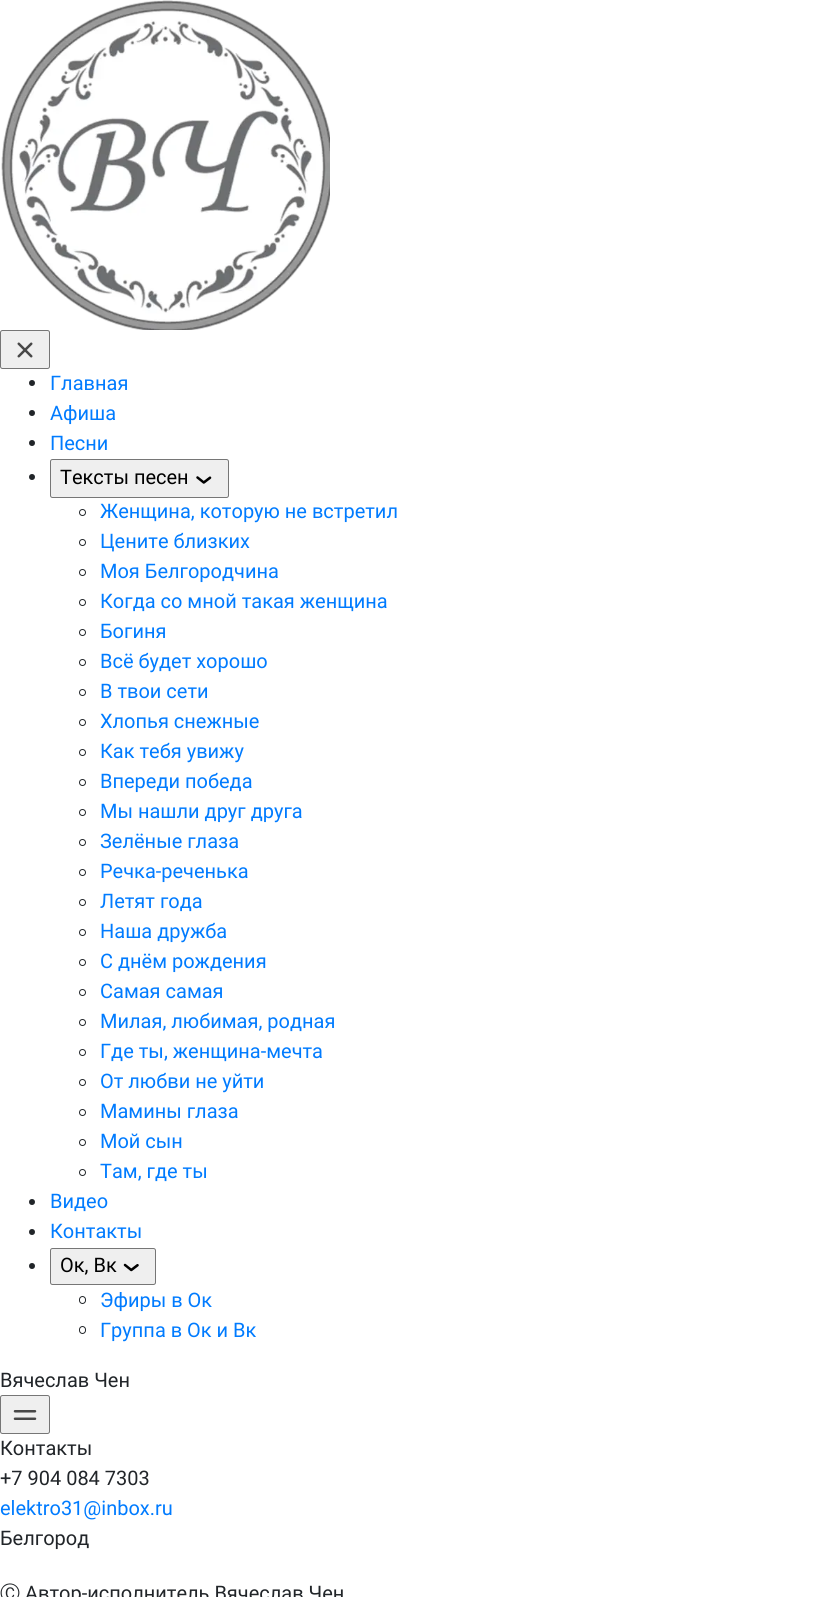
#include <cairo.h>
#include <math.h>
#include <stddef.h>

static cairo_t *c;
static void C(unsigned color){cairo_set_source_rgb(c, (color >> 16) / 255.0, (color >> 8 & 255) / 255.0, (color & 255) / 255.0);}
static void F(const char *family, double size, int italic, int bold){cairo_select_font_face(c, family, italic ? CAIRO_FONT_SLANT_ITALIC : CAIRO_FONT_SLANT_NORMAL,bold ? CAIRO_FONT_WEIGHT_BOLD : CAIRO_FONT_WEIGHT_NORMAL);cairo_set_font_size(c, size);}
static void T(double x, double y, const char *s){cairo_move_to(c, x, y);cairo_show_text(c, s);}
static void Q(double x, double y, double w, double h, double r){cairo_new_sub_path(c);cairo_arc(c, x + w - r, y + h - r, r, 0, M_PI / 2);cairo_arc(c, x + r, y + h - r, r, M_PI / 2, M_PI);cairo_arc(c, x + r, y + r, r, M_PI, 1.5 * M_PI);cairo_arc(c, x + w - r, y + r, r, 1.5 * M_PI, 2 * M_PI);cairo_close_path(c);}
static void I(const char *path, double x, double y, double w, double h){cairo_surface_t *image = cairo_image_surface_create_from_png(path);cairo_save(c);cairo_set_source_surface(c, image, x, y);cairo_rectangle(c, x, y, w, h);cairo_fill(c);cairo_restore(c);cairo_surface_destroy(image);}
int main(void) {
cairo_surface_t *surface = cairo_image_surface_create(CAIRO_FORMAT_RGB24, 838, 1597);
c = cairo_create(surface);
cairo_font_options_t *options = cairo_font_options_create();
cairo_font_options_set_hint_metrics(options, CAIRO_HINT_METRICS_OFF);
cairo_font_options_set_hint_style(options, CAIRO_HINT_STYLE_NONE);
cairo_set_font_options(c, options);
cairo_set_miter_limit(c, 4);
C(0xffffff);
cairo_paint(c);
I("1.png",1,0,329,330);
C(0xefefef);
Q(.5,330.5,49,38,2);
cairo_fill_preserve(c);
C(0x767676);
cairo_set_line_width(c,1);
cairo_stroke(c);
I("2.png",17,342,16,16);
C(0x212529);
cairo_arc(c,32,383,3,0,2 * M_PI);
cairo_fill(c);
F("Roboto",20,0,0);
C(0x007bff);
T(50,390,"Главная");
C(0x212529);
cairo_new_path(c);
cairo_arc(c,32,413,3,0,2 * M_PI);
cairo_fill(c);
C(0x007bff);
T(50,420,"Афиша");
C(0x212529);
cairo_new_path(c);
cairo_arc(c,32,443,3,0,2 * M_PI);
cairo_fill(c);
C(0x007bff);
T(50,450,"Песни");
C(0x212529);
cairo_new_path(c);
cairo_arc(c,32,477,3,0,2 * M_PI);
cairo_fill(c);
C(0xefefef);
Q(50.5,459.5,178,38,2);
cairo_fill_preserve(c);
C(0x767676);
cairo_stroke(c);
C(0x000000);
T(60,484,"Тексты песен");
I("3.png",196,476,16,8);
cairo_arc(c,82.5,512.5,3,0,2 * M_PI);
C(0x212529);
cairo_stroke(c);
C(0x007bff);
T(100,518,"Женщина, которую не встретил");
cairo_new_path(c);
cairo_arc(c,82.5,542.5,3,0,2 * M_PI);
C(0x212529);
cairo_stroke(c);
C(0x007bff);
T(100,548,"Цените близких");
cairo_new_path(c);
cairo_arc(c,82.5,572.5,3,0,2 * M_PI);
C(0x212529);
cairo_stroke(c);
C(0x007bff);
T(100,578,"Моя Белгородчина");
cairo_new_path(c);
cairo_arc(c,82.5,602.5,3,0,2 * M_PI);
C(0x212529);
cairo_stroke(c);
C(0x007bff);
T(100,608,"Когда со мной такая женщина");
cairo_new_path(c);
cairo_arc(c,82.5,632.5,3,0,2 * M_PI);
C(0x212529);
cairo_stroke(c);
C(0x007bff);
T(100,638,"Богиня");
cairo_new_path(c);
cairo_arc(c,82.5,662.5,3,0,2 * M_PI);
C(0x212529);
cairo_stroke(c);
C(0x007bff);
T(100,668,"Всё будет хорошо");
cairo_new_path(c);
cairo_arc(c,82.5,692.5,3,0,2 * M_PI);
C(0x212529);
cairo_stroke(c);
C(0x007bff);
T(100,698,"В твои сети");
cairo_new_path(c);
cairo_arc(c,82.5,722.5,3,0,2 * M_PI);
C(0x212529);
cairo_stroke(c);
C(0x007bff);
T(100,728,"Хлопья снежные");
cairo_new_path(c);
cairo_arc(c,82.5,752.5,3,0,2 * M_PI);
C(0x212529);
cairo_stroke(c);
C(0x007bff);
T(100,758,"Как тебя увижу");
cairo_new_path(c);
cairo_arc(c,82.5,782.5,3,0,2 * M_PI);
C(0x212529);
cairo_stroke(c);
C(0x007bff);
T(100,788,"Впереди победа");
cairo_new_path(c);
cairo_arc(c,82.5,812.5,3,0,2 * M_PI);
C(0x212529);
cairo_stroke(c);
C(0x007bff);
T(100,818,"Мы нашли друг друга");
cairo_new_path(c);
cairo_arc(c,82.5,842.5,3,0,2 * M_PI);
C(0x212529);
cairo_stroke(c);
C(0x007bff);
T(100,848,"Зелёные глаза");
cairo_new_path(c);
cairo_arc(c,82.5,872.5,3,0,2 * M_PI);
C(0x212529);
cairo_stroke(c);
C(0x007bff);
T(100,878,"Речка-реченька");
cairo_new_path(c);
cairo_arc(c,82.5,902.5,3,0,2 * M_PI);
C(0x212529);
cairo_stroke(c);
C(0x007bff);
T(100,908,"Летят года");
cairo_new_path(c);
cairo_arc(c,82.5,932.5,3,0,2 * M_PI);
C(0x212529);
cairo_stroke(c);
C(0x007bff);
T(100,938,"Наша дружба");
cairo_new_path(c);
cairo_arc(c,82.5,962.5,3,0,2 * M_PI);
C(0x212529);
cairo_stroke(c);
C(0x007bff);
T(100,968,"С днём рождения");
cairo_new_path(c);
cairo_arc(c,82.5,992.5,3,0,2 * M_PI);
C(0x212529);
cairo_stroke(c);
C(0x007bff);
T(100,998,"Самая самая");
cairo_new_path(c);
cairo_arc(c,82.5,1022.5,3,0,2 * M_PI);
C(0x212529);
cairo_stroke(c);
C(0x007bff);
T(100,1028,"Милая, любимая, родная");
cairo_new_path(c);
cairo_arc(c,82.5,1052.5,3,0,2 * M_PI);
C(0x212529);
cairo_stroke(c);
C(0x007bff);
T(100,1058,"Где ты, женщина-мечта");
cairo_new_path(c);
cairo_arc(c,82.5,1082.5,3,0,2 * M_PI);
C(0x212529);
cairo_stroke(c);
C(0x007bff);
T(100,1088,"От любви не уйти");
cairo_new_path(c);
cairo_arc(c,82.5,1112.5,3,0,2 * M_PI);
C(0x212529);
cairo_stroke(c);
C(0x007bff);
T(100,1118,"Мамины глаза");
cairo_new_path(c);
cairo_arc(c,82.5,1142.5,3,0,2 * M_PI);
C(0x212529);
cairo_stroke(c);
C(0x007bff);
T(100,1148,"Мой сын");
cairo_new_path(c);
cairo_arc(c,82.5,1172.5,3,0,2 * M_PI);
C(0x212529);
cairo_stroke(c);
C(0x007bff);
T(100,1178,"Там, где ты");
C(0x212529);
cairo_new_path(c);
cairo_arc(c,32,1202,3,0,2 * M_PI);
cairo_fill(c);
C(0x007bff);
T(50,1208,"Видео");
C(0x212529);
cairo_new_path(c);
cairo_arc(c,32,1232,3,0,2 * M_PI);
cairo_fill(c);
C(0x007bff);
T(50,1238,"Контакты");
C(0x212529);
cairo_new_path(c);
cairo_arc(c,32,1266,3,0,2 * M_PI);
cairo_fill(c);
C(0xefefef);
Q(50.5,1248.5,105,36,2);
cairo_fill_preserve(c);
C(0x767676);
cairo_stroke(c);
C(0x000000);
T(60,1272,"Ок, Вк");
I("4.png",123,1263,16,9);
Q(79.5,1296.5,6,7,3);
C(0x212529);
cairo_stroke(c);
C(0x007bff);
T(100,1307,"Эфиры в Ок");
Q(79.5,1326.5,6,7,3);
C(0x212529);
cairo_stroke(c);
C(0x007bff);
T(100,1337,"Группа в Ок и Вк");
C(0x212529);
T(0,1387,"Вячеслав Чен");
C(0xefefef);
Q(.5,1395.5,49,38,2);
cairo_fill_preserve(c);
C(0x767676);
cairo_stroke(c);
I("5.png",13,1410,24,10);
C(0x212529);
T(0,1455,"Контакты");
T(0,1485,"+7 904 084 7303");
C(0x007bff);
T(0,1515,"elektro31@inbox.ru");
C(0x212529);
T(0,1545,"Белгород");
F("WenQuanYi Zen Hei Medium",20,0,0);
T(0,1600,"Ⓒ");
F("Roboto",20,0,0);
T(25,1600,"Автор-исполнитель Вячеслав Чен");
cairo_surface_write_to_png(surface, "o.png");
cairo_font_options_destroy(options);
cairo_destroy(c);
cairo_surface_destroy(surface);
return 0;
}
